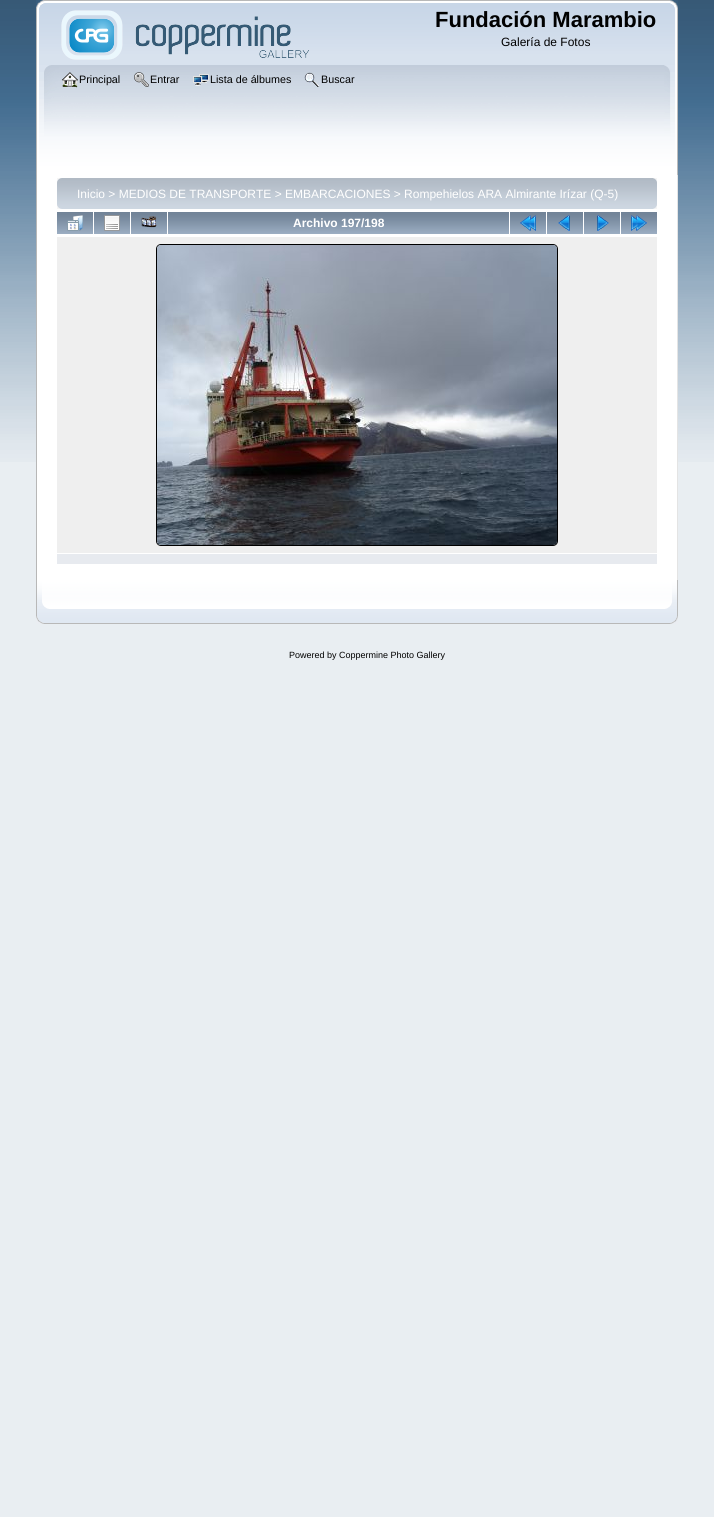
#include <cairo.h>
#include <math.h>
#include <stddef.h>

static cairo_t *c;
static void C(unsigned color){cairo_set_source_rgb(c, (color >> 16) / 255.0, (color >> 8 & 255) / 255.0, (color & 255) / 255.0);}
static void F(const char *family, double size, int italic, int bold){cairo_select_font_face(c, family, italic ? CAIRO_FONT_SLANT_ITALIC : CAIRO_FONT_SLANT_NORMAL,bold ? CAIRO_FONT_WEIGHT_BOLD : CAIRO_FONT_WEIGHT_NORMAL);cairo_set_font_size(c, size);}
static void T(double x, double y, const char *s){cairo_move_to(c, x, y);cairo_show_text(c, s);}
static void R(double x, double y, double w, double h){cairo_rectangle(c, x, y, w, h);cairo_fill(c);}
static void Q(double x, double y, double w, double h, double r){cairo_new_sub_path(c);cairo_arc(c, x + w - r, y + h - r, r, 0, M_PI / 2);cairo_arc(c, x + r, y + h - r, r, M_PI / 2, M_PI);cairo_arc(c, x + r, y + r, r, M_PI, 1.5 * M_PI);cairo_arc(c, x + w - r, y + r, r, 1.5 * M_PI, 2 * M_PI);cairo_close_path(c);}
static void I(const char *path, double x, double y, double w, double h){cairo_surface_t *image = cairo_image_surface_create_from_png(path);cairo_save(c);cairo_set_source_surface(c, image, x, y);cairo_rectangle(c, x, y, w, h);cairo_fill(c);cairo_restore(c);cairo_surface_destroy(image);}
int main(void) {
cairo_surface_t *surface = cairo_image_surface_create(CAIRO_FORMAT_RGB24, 714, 1517);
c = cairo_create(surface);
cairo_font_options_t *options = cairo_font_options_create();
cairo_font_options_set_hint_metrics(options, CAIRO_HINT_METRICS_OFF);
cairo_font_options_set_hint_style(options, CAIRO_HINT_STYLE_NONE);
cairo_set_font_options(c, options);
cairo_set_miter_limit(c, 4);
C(0xe9eef2);
cairo_paint(c);
I("1.png",0,0,714,462);
I("2.png",36,0,634,65);
I("3.png",670,0,8,65);
I("4.png",61,10,248,50);
F("Liberation Sans",22,0,1);
C(0x000000);
T(435,27,"Fundación Marambio");
F("Liberation Sans",12,0,0);
T(501,46,"Galería de Fotos");
I("5.png",36,65,628,110);
I("6.png",664,65,14,110);
I("7.png",62,72,16,16);
F("Liberation Sans",10.75,0,0);
T(79,83,"Principal");
I("8.png",134,72,15,15);
T(150,83,"Entrar");
I("9.png",193,74,16,12);
T(210,83,"Lista de álbumes");
I("10.png",304,72,16,15);
T(321,83,"Buscar");
C(0xffffff);
R(37,175,640,405);
C(0xb7b7b7);
R(36,175,1,405);
C(0xe4e4e4);
R(677,175,1,405);
I("11.png",57,178,596,31);
I("12.png",653,178,4,31);
F("Liberation Sans",12,0,0);
C(0xffffff);
T(77,198,"Inicio > MEDIOS DE TRANSPORTE > EMBARCACIONES > Rompehielos ARA Almirante Irízar (Q-5)");
I("13.png",57,212,36,22);
I("14.png",67,215,16,16);
I("13.png",94,212,36,22);
I("15.png",104,215,16,16);
I("13.png",131,212,36,22);
I("16.png",141,216,16,12);
I("17.png",168,212,341,22);
F("Liberation Sans",12,0,1);
T(293,227,"Archivo 197/198");
I("13.png",510,212,36,22);
I("18.png",520,215,16,16);
I("13.png",547,212,36,22);
I("19.png",558,215,12,16);
I("13.png",584,212,36,22);
I("20.png",597,215,12,16);
I("13.png",621,212,36,22);
I("21.png",631,215,16,16);
C(0xefefef);
R(57,237,600,316);
Q(156.5,244.5,401,301,4.5);
C(0x000000);
cairo_set_line_width(c,1);
cairo_stroke(c);
I("22.png",157,245,400,300);
C(0xe7eaef);
R(57,554,600,10);
I("23.png",36,580,629,44);
I("24.png",665,580,13,44);
F("Liberation Sans",9,0,0);
C(0x000000);
T(289,658,"Powered by Coppermine Photo Gallery");
cairo_surface_write_to_png(surface, "o.png");
cairo_font_options_destroy(options);
cairo_destroy(c);
cairo_surface_destroy(surface);
return 0;
}
